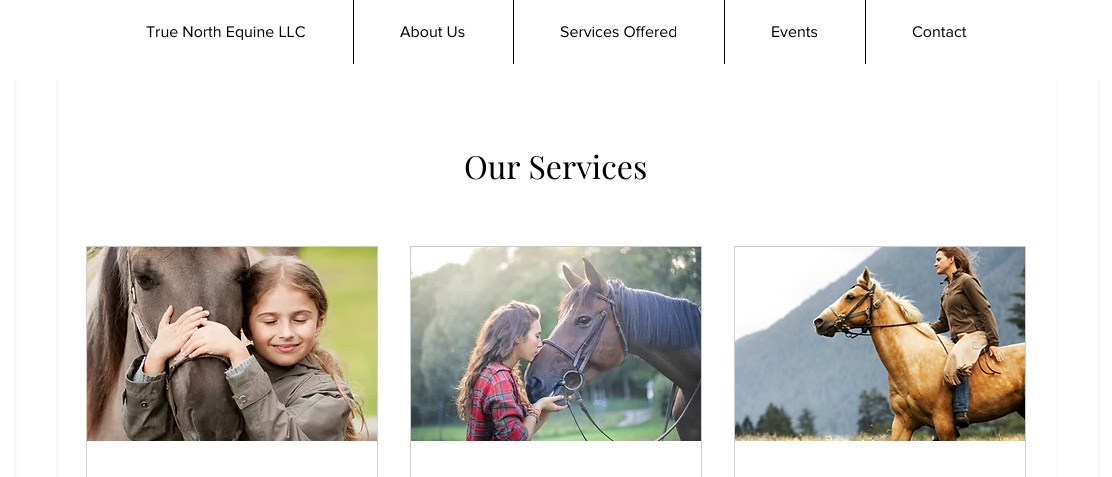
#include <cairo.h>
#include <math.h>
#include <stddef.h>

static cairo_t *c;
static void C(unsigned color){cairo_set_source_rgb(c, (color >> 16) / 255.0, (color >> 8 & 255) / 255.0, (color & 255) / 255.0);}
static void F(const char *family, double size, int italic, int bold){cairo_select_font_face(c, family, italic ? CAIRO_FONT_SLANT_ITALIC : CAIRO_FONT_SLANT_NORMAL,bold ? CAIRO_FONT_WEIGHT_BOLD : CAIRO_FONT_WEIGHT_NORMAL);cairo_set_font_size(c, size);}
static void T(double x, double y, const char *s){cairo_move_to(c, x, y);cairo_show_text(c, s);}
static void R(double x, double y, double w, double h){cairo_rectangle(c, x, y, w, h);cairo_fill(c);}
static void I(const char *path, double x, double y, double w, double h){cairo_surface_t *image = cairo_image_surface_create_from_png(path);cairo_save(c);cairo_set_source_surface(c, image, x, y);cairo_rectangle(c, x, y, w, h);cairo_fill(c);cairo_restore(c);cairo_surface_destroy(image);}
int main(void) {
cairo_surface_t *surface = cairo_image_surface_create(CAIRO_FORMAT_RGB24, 1112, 477);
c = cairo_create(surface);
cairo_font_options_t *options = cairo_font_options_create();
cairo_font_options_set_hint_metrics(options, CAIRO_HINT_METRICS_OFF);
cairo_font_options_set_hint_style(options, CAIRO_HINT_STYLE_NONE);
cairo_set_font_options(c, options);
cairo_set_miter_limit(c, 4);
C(0xffffff);
cairo_paint(c);
F("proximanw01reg",16,0,0);
C(0x000000);
T(146,37,"True North Equine LLC");
R(353,0,1,64);
T(400,37,"About Us");
R(513,0,1,64);
T(560,37,"Services Offered");
R(724,0,1,64);
T(771,37,"Events");
R(865,0,1,64);
T(912,37,"Contact");
I("4.png",15,80,1085,397);
C(0xffffff);
R(98,80,919,397);
F("Playfair Display",32,0,0);
C(0x000000);
T(464,179,"Our Services");
cairo_rectangle(c,86.5,246.5,291,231);
C(0xcccccc);
cairo_set_line_width(c,1);
cairo_stroke(c);
I("1.png",87,247,290,194);
cairo_rectangle(c,410.5,246.5,291,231);
cairo_stroke(c);
I("2.png",411,247,290,194);
cairo_rectangle(c,734.5,246.5,291,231);
cairo_stroke(c);
I("3.png",735,247,290,194);
cairo_surface_write_to_png(surface, "o.png");
cairo_font_options_destroy(options);
cairo_destroy(c);
cairo_surface_destroy(surface);
return 0;
}
